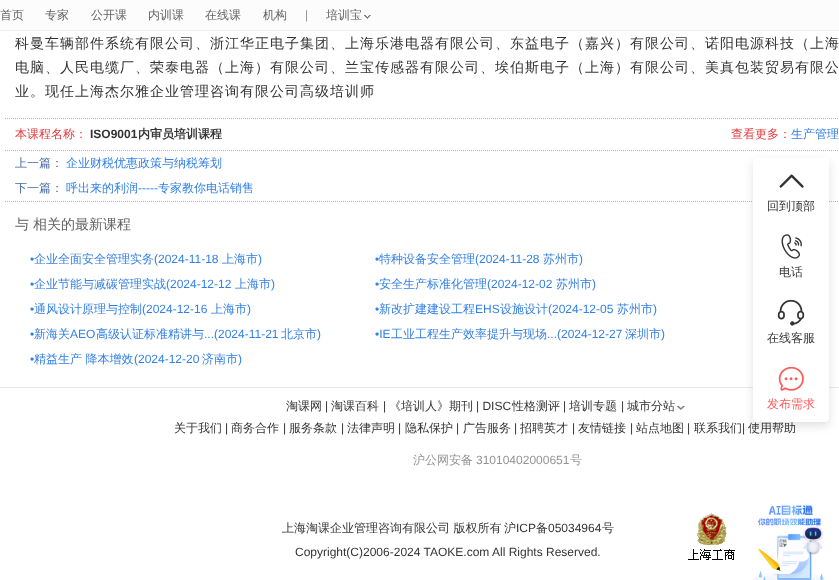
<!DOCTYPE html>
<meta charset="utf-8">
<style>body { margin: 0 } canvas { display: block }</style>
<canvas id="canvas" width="839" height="580"></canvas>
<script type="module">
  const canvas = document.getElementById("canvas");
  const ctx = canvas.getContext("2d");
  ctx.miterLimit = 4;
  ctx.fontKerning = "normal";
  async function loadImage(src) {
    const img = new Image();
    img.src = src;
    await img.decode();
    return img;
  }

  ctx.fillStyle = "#ffffff";
  ctx.fillRect(0, 0, 839, 580);
  ctx.fillStyle = "#fcfcfc";
  ctx.fillRect(0, 0, 839, 30);
  ctx.fillStyle = "#efefef";
  ctx.fillRect(0, 30, 839, 1);
  ctx.font = "500 12px WenQuanYi Zen Hei";
  ctx.fillStyle = "#636363";
  ctx.fillText("首页", 0, 19);
  ctx.fillText("专家", 45, 19);
  ctx.fillText("公开课", 91, 19);
  ctx.fillText("内训课", 148, 19);
  ctx.fillText("在线课", 205, 19);
  ctx.fillText("机构", 263, 19);
  ctx.font = "12px Liberation Sans";
  ctx.fillStyle = "#939393";
  ctx.fillText("|", 305, 19);
  ctx.font = "500 12px WenQuanYi Zen Hei";
  ctx.fillStyle = "#636363";
  ctx.fillText("培训宝", 326, 19);
  ctx.drawImage(await loadImage("img1.png"), 364, 15, 7, 4);
  ctx.letterSpacing = "1px";
  ctx.font = "500 14px WenQuanYi Zen Hei";
  ctx.fillStyle = "#333333";
  ctx.fillText("科曼车辆部件系统有限公司、浙江华正电子集团、上海乐港电器有限公司、东益电子（嘉兴）有限公司、诺阳电源科技（上海", 15, 48);
  ctx.fillText("电脑、人民电缆厂、荣泰电器（上海）有限公司、兰宝传感器有限公司、埃伯斯电子（上海）有限公司、美真包装贸易有限公", 15, 72);
  ctx.fillText("业。现任上海杰尔雅企业管理咨询有限公司高级培训师", 15, 96);
  ctx.beginPath();
  ctx.moveTo(5, 118.5);
  ctx.lineTo(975, 118.5);
  ctx.strokeStyle = "#93bcf1";
  ctx.setLineDash([1, 1]);
  ctx.stroke();
  ctx.beginPath();
  ctx.moveTo(5, 150.5);
  ctx.lineTo(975, 150.5);
  ctx.stroke();
  ctx.letterSpacing = "0px";
  ctx.font = "500 12px WenQuanYi Zen Hei";
  ctx.fillStyle = "#e2393c";
  ctx.fillText("本课程名称：", 15, 138);
  ctx.font = "bold 12px Liberation Sans";
  ctx.fillStyle = "#333333";
  ctx.fillText("ISO9001", 90, 138);
  ctx.font = "bold 12px WenQuanYi Zen Hei";
  ctx.fillText("内审员培训课程", 138, 138);
  ctx.font = "500 12px WenQuanYi Zen Hei";
  ctx.fillStyle = "#e2393c";
  ctx.fillText("查看更多：", 731, 138);
  ctx.fillStyle = "#3380e5";
  ctx.fillText("生产管理", 791, 138);
  ctx.beginPath();
  ctx.moveTo(5, 201.5);
  ctx.lineTo(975, 201.5);
  ctx.stroke();
  ctx.fillStyle = "#456aa4";
  ctx.fillText("上一篇：", 15, 167);
  ctx.fillStyle = "#3380e5";
  ctx.fillText("企业财税优惠政策与纳税筹划", 66, 167);
  ctx.fillStyle = "#456aa4";
  ctx.fillText("下一篇：", 15, 192);
  ctx.fillStyle = "#3380e5";
  ctx.fillText("呼出来的利润", 66, 192);
  ctx.font = "12px Liberation Sans";
  ctx.fillText("-----", 138, 192);
  ctx.font = "500 12px WenQuanYi Zen Hei";
  ctx.fillText("专家教你电话销售", 158, 192);
  ctx.font = "500 14px WenQuanYi Zen Hei";
  ctx.fillStyle = "#636363";
  ctx.fillText("与", 15, 229);
  ctx.fillText("相关的最新课程", 33, 229);
  ctx.font = "12px Liberation Sans";
  ctx.fillStyle = "#3380e5";
  ctx.fillText("•", 30, 263);
  ctx.font = "500 12px WenQuanYi Zen Hei";
  ctx.fillText("企业全面安全管理实务", 34, 263);
  ctx.font = "12px Liberation Sans";
  ctx.fillText("(2024-11-18", 154, 263);
  ctx.font = "500 12px WenQuanYi Zen Hei";
  ctx.fillText("上海市", 222, 263);
  ctx.font = "12px Liberation Sans";
  ctx.fillText(")", 258, 263);
  ctx.fillText("•", 375, 263);
  ctx.font = "500 12px WenQuanYi Zen Hei";
  ctx.fillText("特种设备安全管理", 379, 263);
  ctx.font = "12px Liberation Sans";
  ctx.fillText("(2024-11-28", 475, 263);
  ctx.font = "500 12px WenQuanYi Zen Hei";
  ctx.fillText("苏州市", 543, 263);
  ctx.font = "12px Liberation Sans";
  ctx.fillText(")", 579, 263);
  ctx.fillText("•", 30, 288);
  ctx.font = "500 12px WenQuanYi Zen Hei";
  ctx.fillText("企业节能与减碳管理实战", 34, 288);
  ctx.font = "12px Liberation Sans";
  ctx.fillText("(2024-12-12", 166, 288);
  ctx.font = "500 12px WenQuanYi Zen Hei";
  ctx.fillText("上海市", 235, 288);
  ctx.font = "12px Liberation Sans";
  ctx.fillText(")", 271, 288);
  ctx.fillText("•", 375, 288);
  ctx.font = "500 12px WenQuanYi Zen Hei";
  ctx.fillText("安全生产标准化管理", 379, 288);
  ctx.font = "12px Liberation Sans";
  ctx.fillText("(2024-12-02", 487, 288);
  ctx.font = "500 12px WenQuanYi Zen Hei";
  ctx.fillText("苏州市", 556, 288);
  ctx.font = "12px Liberation Sans";
  ctx.fillText(")", 592, 288);
  ctx.fillText("•", 30, 313);
  ctx.font = "500 12px WenQuanYi Zen Hei";
  ctx.fillText("通风设计原理与控制", 34, 313);
  ctx.font = "12px Liberation Sans";
  ctx.fillText("(2024-12-16", 142, 313);
  ctx.font = "500 12px WenQuanYi Zen Hei";
  ctx.fillText("上海市", 211, 313);
  ctx.font = "12px Liberation Sans";
  ctx.fillText(")", 247, 313);
  ctx.fillText("•", 375, 313);
  ctx.font = "500 12px WenQuanYi Zen Hei";
  ctx.fillText("新改扩建建设工程", 379, 313);
  ctx.font = "12px Liberation Sans";
  ctx.fillText("EHS", 475, 313);
  ctx.font = "500 12px WenQuanYi Zen Hei";
  ctx.fillText("设施设计", 500, 313);
  ctx.font = "12px Liberation Sans";
  ctx.fillText("(2024-12-05", 548, 313);
  ctx.font = "500 12px WenQuanYi Zen Hei";
  ctx.fillText("苏州市", 617, 313);
  ctx.font = "12px Liberation Sans";
  ctx.fillText(")", 653, 313);
  ctx.fillText("•", 30, 338);
  ctx.font = "500 12px WenQuanYi Zen Hei";
  ctx.fillText("新海关", 34, 338);
  ctx.font = "12px Liberation Sans";
  ctx.fillText("AEO", 70, 338);
  ctx.font = "500 12px WenQuanYi Zen Hei";
  ctx.fillText("高级认证标准精讲与", 96, 338);
  ctx.font = "12px Liberation Sans";
  ctx.fillText("...(2024-11-21", 204, 338);
  ctx.font = "500 12px WenQuanYi Zen Hei";
  ctx.fillText("北京市", 281, 338);
  ctx.font = "12px Liberation Sans";
  ctx.fillText(")", 317, 338);
  ctx.fillText("•IE", 375, 338);
  ctx.font = "500 12px WenQuanYi Zen Hei";
  ctx.fillText("工业工程生产效率提升与现场", 391, 338);
  ctx.font = "12px Liberation Sans";
  ctx.fillText("...(2024-12-27", 547, 338);
  ctx.font = "500 12px WenQuanYi Zen Hei";
  ctx.fillText("深圳市", 625, 338);
  ctx.font = "12px Liberation Sans";
  ctx.fillText(")", 661, 338);
  ctx.fillText("•", 30, 363);
  ctx.font = "500 12px WenQuanYi Zen Hei";
  ctx.fillText("精益生产 降本增效", 34, 363);
  ctx.font = "12px Liberation Sans";
  ctx.fillText("(2024-12-20", 134, 363);
  ctx.font = "500 12px WenQuanYi Zen Hei";
  ctx.fillText("济南市", 202, 363);
  ctx.font = "12px Liberation Sans";
  ctx.fillText(")", 238, 363);
  ctx.fillStyle = "#e7e7e7";
  ctx.fillRect(0, 387, 839, 1);
  ctx.fillStyle = "rgba(0, 0, 0, 0.12)";
  ctx.filter = "blur(5px)";
  ctx.beginPath();
  ctx.roundRect(753, 162, 76, 264, 4);
  ctx.fill();
  ctx.filter = "none";
  ctx.fillStyle = "#ffffff";
  ctx.beginPath();
  ctx.roundRect(753, 158, 76, 264, 4);
  ctx.fill();
  ctx.drawImage(await loadImage("img2.png"), 779, 174, 25, 14);
  ctx.font = "500 12px WenQuanYi Zen Hei";
  ctx.fillStyle = "#333333";
  ctx.fillText("回到顶部", 767, 210);
  ctx.drawImage(await loadImage("img3.png"), 781, 234, 21, 25);
  ctx.fillText("电话", 779, 276);
  ctx.drawImage(await loadImage("img4.png"), 777, 299, 28, 27);
  ctx.fillText("在线客服", 767, 342);
  ctx.drawImage(await loadImage("img5.png"), 778, 366, 26, 25);
  ctx.fillStyle = "#ff5b5b";
  ctx.fillText("发布需求", 767, 408);
  ctx.drawImage(await loadImage("img6.png"), 753, 505, 72, 75);
  ctx.fillStyle = "#333333";
  ctx.fillText("淘课网", 286, 410);
  ctx.font = "12px Liberation Sans";
  ctx.fillText("|", 325, 410);
  ctx.font = "500 12px WenQuanYi Zen Hei";
  ctx.fillText("淘课百科", 331, 410);
  ctx.font = "12px Liberation Sans";
  ctx.fillText("|", 383, 410);
  ctx.font = "500 12px WenQuanYi Zen Hei";
  ctx.fillText("《培训人》期刊", 389, 410);
  ctx.font = "12px Liberation Sans";
  ctx.fillText("| DISC", 476, 410);
  ctx.font = "500 12px WenQuanYi Zen Hei";
  ctx.fillText("性格测评", 512, 410);
  ctx.font = "12px Liberation Sans";
  ctx.fillText("|", 563, 410);
  ctx.font = "500 12px WenQuanYi Zen Hei";
  ctx.fillText("培训专题", 569, 410);
  ctx.font = "12px Liberation Sans";
  ctx.fillText("|", 621, 410);
  ctx.font = "500 12px WenQuanYi Zen Hei";
  ctx.fillText("城市分站", 627, 410);
  ctx.drawImage(await loadImage("img7.png"), 677, 406, 8, 4);
  ctx.fillText("关于我们", 174, 432);
  ctx.font = "12px Liberation Sans";
  ctx.fillText("|", 225, 432);
  ctx.font = "500 12px WenQuanYi Zen Hei";
  ctx.fillText("商务合作", 231, 432);
  ctx.font = "12px Liberation Sans";
  ctx.fillText("|", 283, 432);
  ctx.font = "500 12px WenQuanYi Zen Hei";
  ctx.fillText("服务条款", 289, 432);
  ctx.font = "12px Liberation Sans";
  ctx.fillText("|", 341, 432);
  ctx.font = "500 12px WenQuanYi Zen Hei";
  ctx.fillText("法律声明", 347, 432);
  ctx.font = "12px Liberation Sans";
  ctx.fillText("|", 398, 432);
  ctx.font = "500 12px WenQuanYi Zen Hei";
  ctx.fillText("隐私保护", 405, 432);
  ctx.font = "12px Liberation Sans";
  ctx.fillText("|", 456, 432);
  ctx.font = "500 12px WenQuanYi Zen Hei";
  ctx.fillText("广告服务", 463, 432);
  ctx.font = "12px Liberation Sans";
  ctx.fillText("|", 514, 432);
  ctx.font = "500 12px WenQuanYi Zen Hei";
  ctx.fillText("招聘英才", 520, 432);
  ctx.font = "12px Liberation Sans";
  ctx.fillText("|", 572, 432);
  ctx.font = "500 12px WenQuanYi Zen Hei";
  ctx.fillText("友情链接", 578, 432);
  ctx.font = "12px Liberation Sans";
  ctx.fillText("|", 630, 432);
  ctx.font = "500 12px WenQuanYi Zen Hei";
  ctx.fillText("站点地图", 636, 432);
  ctx.font = "12px Liberation Sans";
  ctx.fillText("|", 687, 432);
  ctx.font = "500 12px WenQuanYi Zen Hei";
  ctx.fillText("联系我们", 694, 432);
  ctx.font = "12px Liberation Sans";
  ctx.fillText("|", 742, 432);
  ctx.font = "500 12px WenQuanYi Zen Hei";
  ctx.fillText("使用帮助", 748, 432);
  ctx.fillStyle = "#939393";
  ctx.fillText("沪公网安备", 413, 464);
  ctx.font = "12px Liberation Sans";
  ctx.fillText("31010402000651", 476, 464);
  ctx.font = "500 12px WenQuanYi Zen Hei";
  ctx.fillText("号", 570, 464);
  ctx.drawImage(await loadImage("img8.png"), 688, 513, 47, 47);
  ctx.fillStyle = "#333333";
  ctx.fillText("上海淘课企业管理咨询有限公司 版权所有", 282, 532);
  ctx.fillText("沪", 504, 532);
  ctx.font = "12px Liberation Sans";
  ctx.fillText("ICP", 516, 532);
  ctx.font = "500 12px WenQuanYi Zen Hei";
  ctx.fillText("备", 536, 532);
  ctx.font = "12px Liberation Sans";
  ctx.fillText("05034964", 548, 532);
  ctx.font = "500 12px WenQuanYi Zen Hei";
  ctx.fillText("号", 602, 532);
  ctx.font = "12px Liberation Sans";
  ctx.fillText("Copyright(C)2006-2024 TAOKE.com All Rights Reserved.", 295, 556);
</script>
